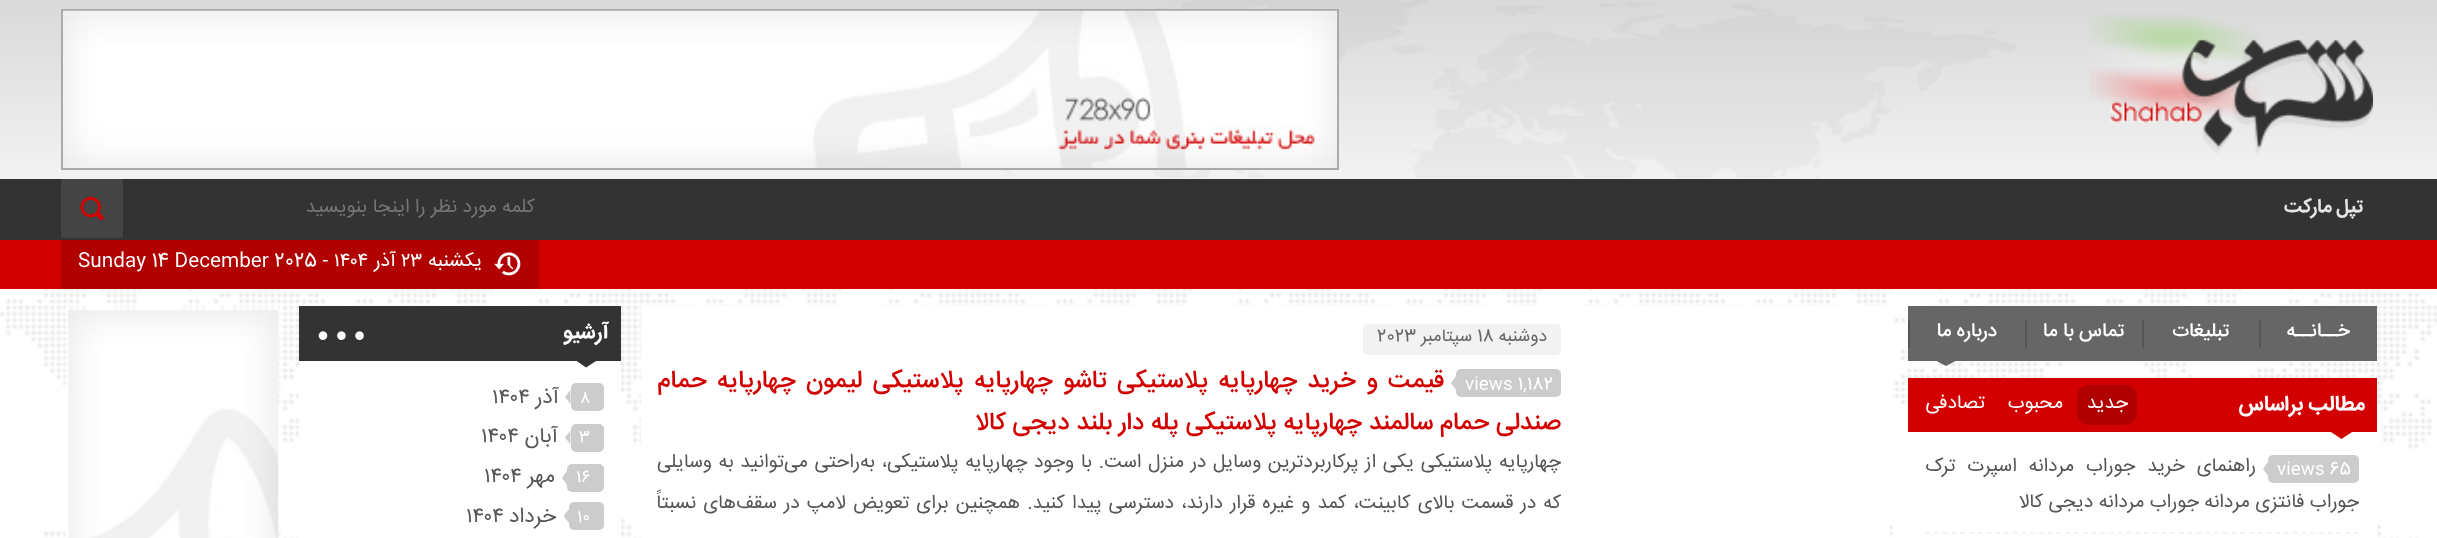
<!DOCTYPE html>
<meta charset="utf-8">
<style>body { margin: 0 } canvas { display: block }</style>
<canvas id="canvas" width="2437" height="538"></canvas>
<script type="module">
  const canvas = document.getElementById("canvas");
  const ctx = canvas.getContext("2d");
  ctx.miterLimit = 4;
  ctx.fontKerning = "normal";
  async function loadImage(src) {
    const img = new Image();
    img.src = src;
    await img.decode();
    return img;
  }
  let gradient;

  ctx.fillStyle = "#ffffff";
  ctx.fillRect(0, 0, 2437, 538);
  ctx.drawImage(await loadImage("img1.png"), 0, 289, 2437, 249);
  gradient = ctx.createLinearGradient(1219, 0, 1219, 179);
  gradient.addColorStop(0, "#d9d9d9");
  gradient.addColorStop(1, "#f2f2f2");
  ctx.fillStyle = gradient;
  ctx.fillRect(0, 0, 2437, 179);
  ctx.drawImage(await loadImage("img2.png"), 1003, 0, 1014, 178);
  ctx.drawImage(await loadImage("img3.png"), 2089, 13, 284, 141);
  ctx.strokeStyle = "#aaaaaa";
  ctx.lineWidth = 2;
  ctx.strokeRect(62, 10, 1276, 159);
  ctx.drawImage(await loadImage("img4.png"), 63, 10, 1274, 158);
  ctx.fillStyle = "#333333";
  ctx.fillRect(0, 179, 2437, 61);
  ctx.direction = "rtl";
  ctx.font = "bold 19.25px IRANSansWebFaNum";
  ctx.fillStyle = "#e5e5e5";
  ctx.fillText("تپل مارکت", 2363, 212);
  ctx.font = "19.25px IRANSansWebFaNum";
  ctx.fillStyle = "#757575";
  ctx.fillText("كلمه مورد نظر را اينجا بنويسيد", 535, 212);
  ctx.fillStyle = "#444444";
  ctx.fillRect(61, 179, 62, 59);
  ctx.drawImage(await loadImage("img5.png"), 80, 196, 24, 25);
  ctx.fillStyle = "#d20001";
  ctx.fillRect(0, 240, 2437, 49);
  ctx.fillStyle = "#b10000";
  ctx.fillRect(61, 240, 478, 49);
  ctx.drawImage(await loadImage("img6.png"), 494, 252, 27, 24);
  ctx.fillStyle = "#ffffff";
  ctx.fillText("یکشنبه", 482, 266);
  ctx.direction = "ltr";
  ctx.fillText("۲۳", 401, 266);
  ctx.direction = "rtl";
  ctx.fillText("آذر", 396, 266);
  ctx.direction = "ltr";
  ctx.fillText("Sunday 14 December 2025 - ۱۴۰۴", 78, 266);
  ctx.fillStyle = "#666666";
  ctx.fillRect(1908, 306, 469, 55);
  ctx.direction = "rtl";
  ctx.font = "500 19.25px IRANSansWebFaNum";
  ctx.fillStyle = "#ffffff";
  ctx.fillText("خــانــه", 2350, 336);
  ctx.fillStyle = "#555555";
  ctx.fillRect(2259, 320, 2, 28);
  ctx.fillStyle = "#ffffff";
  ctx.fillText("تبلیغات", 2229, 336);
  ctx.fillStyle = "#555555";
  ctx.fillRect(2142, 320, 2, 28);
  ctx.fillStyle = "#ffffff";
  ctx.fillText("تماس با ما", 2124, 336);
  ctx.fillStyle = "#555555";
  ctx.fillRect(2025, 320, 2, 28);
  ctx.fillStyle = "#ffffff";
  ctx.fillText("درباره ما", 1997, 336);
  ctx.fillStyle = "#555555";
  ctx.fillRect(1908, 320, 2, 28);
  ctx.fillStyle = "#666666";
  ctx.beginPath();
  ctx.moveTo(1935.5, 360.5);
  ctx.lineTo(1956.5, 360.5);
  ctx.lineTo(1946, 366);
  ctx.closePath();
  ctx.fill();
  ctx.fillStyle = "#ffffff";
  ctx.fillRect(1925, 432, 452, 106);
  ctx.fillStyle = "#d20001";
  ctx.fillRect(1908, 378, 469, 54);
  ctx.font = "bold 21px IRANSansWebFaNum";
  ctx.fillStyle = "#ffffff";
  ctx.fillText("مطالب براساس", 2365, 410);
  ctx.fillStyle = "#b10000";
  ctx.beginPath();
  ctx.roundRect(2077, 385, 60, 40, 12);
  ctx.fill();
  ctx.font = "19.25px IRANSansWebFaNum";
  ctx.fillStyle = "#ffffff";
  ctx.fillText("جدید", 2128, 408);
  ctx.fillText("محبوب", 2063, 408);
  ctx.fillText("تصادفی", 1985, 408);
  ctx.fillStyle = "#d20001";
  ctx.beginPath();
  ctx.moveTo(2331, 432);
  ctx.lineTo(2352, 432);
  ctx.lineTo(2341.5, 439);
  ctx.closePath();
  ctx.fill();
  ctx.beginPath();
  ctx.moveTo(1925, 533);
  ctx.lineTo(2359, 533);
  ctx.strokeStyle = "#f2f2f2";
  ctx.lineWidth = 1.8;
  ctx.setLineDash([5.25, 3.5]);
  ctx.stroke();
  ctx.fillStyle = "#cccccc";
  ctx.beginPath();
  ctx.roundRect(2268, 455, 91, 28, 5);
  ctx.fill();
  ctx.direction = "ltr";
  ctx.font = "17.5px IRANSansWebFaNum";
  ctx.fillStyle = "#ffffff";
  ctx.fillText("views 65", 2277, 474);
  ctx.fillStyle = "#cccccc";
  ctx.beginPath();
  ctx.moveTo(2268, 462);
  ctx.lineTo(2268, 476);
  ctx.lineTo(2263, 469);
  ctx.closePath();
  ctx.fill();
  ctx.wordSpacing = "6.5px";
  ctx.direction = "rtl";
  ctx.font = "19.25px IRANSansWebFaNum";
  ctx.fillStyle = "#555555";
  ctx.fillText("راهنمای خرید جوراب مردانه اسپرت ترک", 2256, 471);
  ctx.wordSpacing = "0px";
  ctx.fillText("جوراب فانتزی مردانه جوراب مردانه دیجی کالا", 2359, 507);
  ctx.fillStyle = "#ffffff";
  ctx.fillRect(641, 306, 1249, 232);
  ctx.fillStyle = "#f2f2f2";
  ctx.beginPath();
  ctx.roundRect(1495, 324, 66, 31, [0, 5, 5, 0]);
  ctx.fill();
  ctx.font = "17.5px IRANSansWebFaNum";
  ctx.fillStyle = "#666666";
  ctx.fillText("دوشنبه", 1547, 341);
  ctx.fillStyle = "#f2f2f2";
  ctx.fillRect(1416, 324, 79, 31);
  ctx.direction = "ltr";
  ctx.fillStyle = "#666666";
  ctx.fillText("18", 1477, 341);
  ctx.direction = "rtl";
  ctx.fillText("سپتامبر", 1472, 341);
  ctx.fillStyle = "#f2f2f2";
  ctx.beginPath();
  ctx.roundRect(1363, 324, 53, 31, [5, 0, 0, 5]);
  ctx.fill();
  ctx.direction = "ltr";
  ctx.fillStyle = "#666666";
  ctx.fillText("2023", 1377, 341);
  ctx.wordSpacing = "3.6px";
  ctx.direction = "rtl";
  ctx.font = "500 24.5px IRANSansWebFaNum";
  ctx.fillStyle = "#d20001";
  ctx.fillText("قیمت و خرید چهارپایه پلاستیکی تاشو چهارپایه پلاستیکی لیمون چهارپایه حمام", 1444, 387);
  ctx.wordSpacing = "0px";
  ctx.fillText("صندلی حمام سالمند چهارپایه پلاستیکی پله دار بلند دیجی کالا", 1561, 429);
  ctx.fillStyle = "#cccccc";
  ctx.beginPath();
  ctx.roundRect(1456, 369, 105, 28, 5);
  ctx.fill();
  ctx.direction = "ltr";
  ctx.font = "17.5px IRANSansWebFaNum";
  ctx.fillStyle = "#ffffff";
  ctx.fillText("views 1,182", 1465, 389);
  ctx.fillStyle = "#cccccc";
  ctx.beginPath();
  ctx.moveTo(1456, 376);
  ctx.lineTo(1456, 390);
  ctx.lineTo(1451, 383);
  ctx.closePath();
  ctx.fill();
  ctx.wordSpacing = "1.25px";
  ctx.direction = "rtl";
  ctx.font = "19.25px IRANSansWebFaNum";
  ctx.fillStyle = "#555555";
  ctx.fillText("چهارپایه پلاستیکی یکی از پرکاربردترین وسایل در منزل است. با وجود چهارپایه پلاستیکی، به‌راحتی می‌توانید به وسایلی", 1561, 467);
  ctx.wordSpacing = "1.7px";
  ctx.fillText("که در قسمت بالای کابینت، کمد و غیره قرار دارند، دسترسی پیدا کنید. همچنین برای تعویض لامپ در سقف‌های نسبتاً", 1561, 508);
  ctx.fillStyle = "#ffffff";
  ctx.fillRect(299, 361, 322, 177);
  ctx.fillStyle = "#333333";
  ctx.fillRect(299, 306, 322, 55);
  ctx.wordSpacing = "0px";
  ctx.font = "bold 21px IRANSansWebFaNum";
  ctx.fillStyle = "#ffffff";
  ctx.fillText("آرشیو", 609, 338);
  ctx.drawImage(await loadImage("img7.png"), 318, 331, 46, 9);
  ctx.fillStyle = "#333333";
  ctx.beginPath();
  ctx.moveTo(576, 360.5);
  ctx.lineTo(597, 360.5);
  ctx.lineTo(586, 367.5);
  ctx.closePath();
  ctx.fill();
  ctx.fillStyle = "#cccccc";
  ctx.beginPath();
  ctx.roundRect(571, 383, 33, 28, 5);
  ctx.fill();
  ctx.direction = "ltr";
  ctx.font = "17.5px IRANSansWebFaNum";
  ctx.fillStyle = "#ffffff";
  ctx.fillText("۸", 580, 403);
  ctx.fillStyle = "#cccccc";
  ctx.beginPath();
  ctx.moveTo(570.5, 390);
  ctx.lineTo(570.5, 404);
  ctx.lineTo(565, 397);
  ctx.closePath();
  ctx.fill();
  ctx.direction = "rtl";
  ctx.font = "21px IRANSansWebFaNum";
  ctx.fillStyle = "#555555";
  ctx.fillText("آذر", 559, 403);
  ctx.direction = "ltr";
  ctx.fillText("۱۴۰۴", 492, 403);
  ctx.fillStyle = "#cccccc";
  ctx.beginPath();
  ctx.roundRect(571, 424, 33, 28, 5);
  ctx.fill();
  ctx.font = "17.5px IRANSansWebFaNum";
  ctx.fillStyle = "#ffffff";
  ctx.fillText("۳", 579, 442);
  ctx.fillStyle = "#cccccc";
  ctx.beginPath();
  ctx.moveTo(570.5, 430.5);
  ctx.lineTo(570.5, 444.5);
  ctx.lineTo(565, 437.5);
  ctx.closePath();
  ctx.fill();
  ctx.direction = "rtl";
  ctx.font = "21px IRANSansWebFaNum";
  ctx.fillStyle = "#555555";
  ctx.fillText("آبان", 558, 442);
  ctx.direction = "ltr";
  ctx.fillText("۱۴۰۴", 481, 442);
  ctx.fillStyle = "#cccccc";
  ctx.beginPath();
  ctx.roundRect(567, 464, 37, 28, 5);
  ctx.fill();
  ctx.font = "17.5px IRANSansWebFaNum";
  ctx.fillStyle = "#ffffff";
  ctx.fillText("۱۶", 576, 482);
  ctx.fillStyle = "#cccccc";
  ctx.beginPath();
  ctx.moveTo(567, 471);
  ctx.lineTo(567, 485);
  ctx.lineTo(562, 478);
  ctx.closePath();
  ctx.fill();
  ctx.direction = "rtl";
  ctx.font = "21px IRANSansWebFaNum";
  ctx.fillStyle = "#555555";
  ctx.fillText("مهر", 555, 482);
  ctx.direction = "ltr";
  ctx.fillText("۱۴۰۴", 484, 482);
  ctx.fillStyle = "#cccccc";
  ctx.beginPath();
  ctx.roundRect(569, 502, 35, 28, 5);
  ctx.fill();
  ctx.font = "17.5px IRANSansWebFaNum";
  ctx.fillStyle = "#ffffff";
  ctx.fillText("۱۰", 577, 522);
  ctx.fillStyle = "#cccccc";
  ctx.beginPath();
  ctx.moveTo(569, 509);
  ctx.lineTo(569, 523);
  ctx.lineTo(563.5, 516);
  ctx.closePath();
  ctx.fill();
  ctx.direction = "rtl";
  ctx.font = "21px IRANSansWebFaNum";
  ctx.fillStyle = "#555555";
  ctx.fillText("خرداد", 556, 522);
  ctx.direction = "ltr";
  ctx.fillText("۱۴۰۴", 466, 522);
  ctx.strokeStyle = "rgba(255, 255, 255, 0.5)";
  ctx.lineWidth = 4;
  ctx.setLineDash([]);
  ctx.strokeRect(67, 308, 213, 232);
  ctx.drawImage(await loadImage("img8.png"), 68, 310, 211, 228);
</script>
